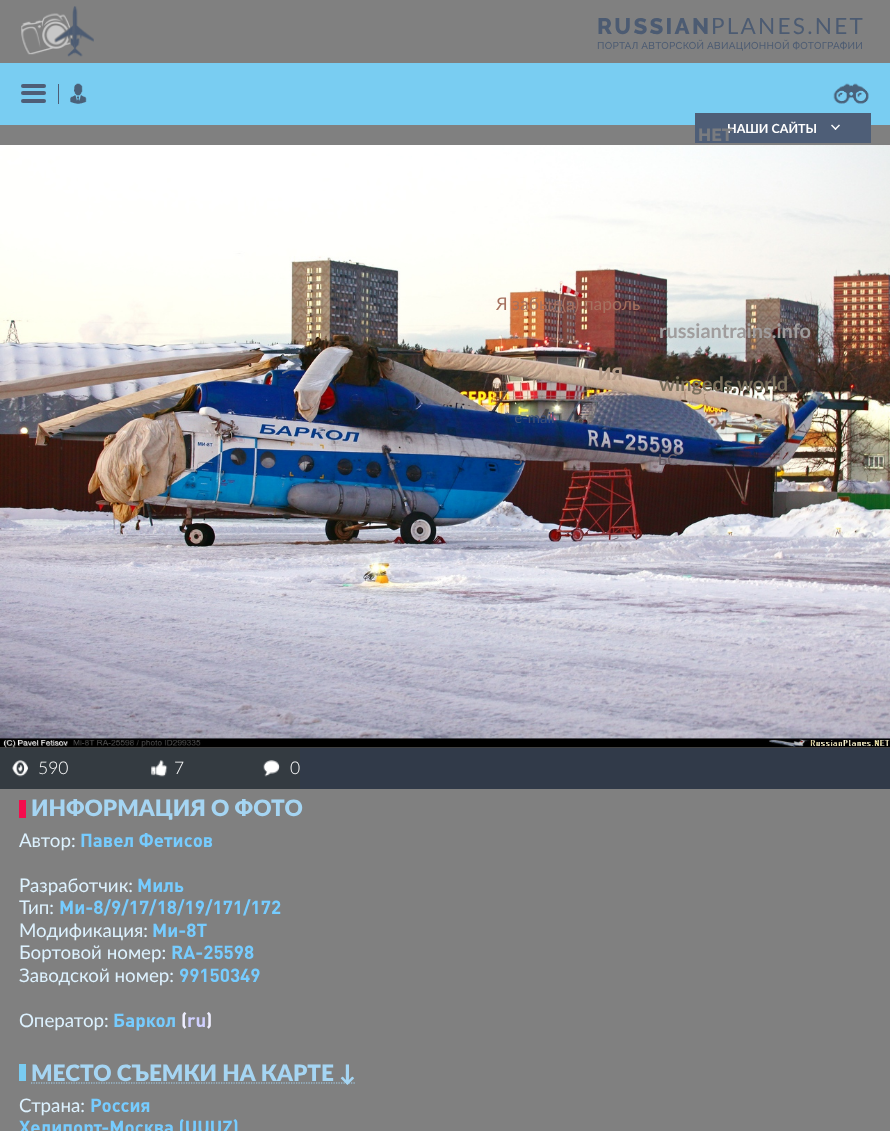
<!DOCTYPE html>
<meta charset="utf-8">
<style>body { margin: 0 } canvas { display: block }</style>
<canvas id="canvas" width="890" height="1131"></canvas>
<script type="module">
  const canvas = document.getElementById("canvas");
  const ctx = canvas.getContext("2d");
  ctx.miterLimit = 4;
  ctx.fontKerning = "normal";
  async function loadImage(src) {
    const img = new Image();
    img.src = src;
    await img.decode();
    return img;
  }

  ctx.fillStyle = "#808080";
  ctx.fillRect(0, 0, 890, 1131);
  ctx.drawImage(await loadImage("img1.png"), 21, 6, 73, 51);
  ctx.letterSpacing = "2.25px";
  ctx.font = "800 22.5px Raleway";
  ctx.fillStyle = "#4c5b72";
  ctx.fillText("RUSSIAN", 597, 34);
  ctx.font = "22.5px Lato";
  ctx.fillText("PLANES.NET", 711, 34);
  ctx.letterSpacing = "0.25px";
  ctx.font = "500 10px Raleway";
  ctx.fillText("ПОРТАЛ АВТОРСКОЙ АВИАЦИОННОЙ ФОТОГРАФИИ", 597, 49);
  ctx.fillStyle = "#79cdf2";
  ctx.fillRect(0, 63, 890, 62);
  ctx.fillStyle = "#4e5e77";
  ctx.fillRect(58, 84, 1, 20);
  ctx.beginPath();
  ctx.roundRect(21, 84, 25, 4, 2);
  ctx.fill();
  ctx.beginPath();
  ctx.roundRect(21, 91, 25, 4, 2);
  ctx.fill();
  ctx.beginPath();
  ctx.roundRect(21, 99, 25, 4, 2);
  ctx.fill();
  ctx.drawImage(await loadImage("img4.png"), 0, 145, 890, 603);
  ctx.letterSpacing = "-13px";
  ctx.font = "40px Liberation Serif";
  ctx.fillStyle = "#667287";
  ctx.fillText(">", 280, 378);
  ctx.drawImage(await loadImage("img2.png"), 833, 83, 36, 21);
  ctx.drawImage(await loadImage("img3.png"), 70, 83, 17, 21);
  ctx.fillStyle = "#4e5e77";
  ctx.fillRect(695, 113, 176, 30);
  ctx.letterSpacing = "0px";
  ctx.font = "bold 12.5px Lato";
  ctx.fillStyle = "#ffffff";
  ctx.fillText("НАШИ САЙТЫ", 727, 133);
  ctx.font = "800 17.5px Raleway";
  ctx.fillStyle = "#797b7f";
  ctx.fillText("НЕТ", 698, 141);
  ctx.font = "17.5px Lato";
  ctx.fillStyle = "#a6715f";
  ctx.fillText("Я забыл(а) пароль", 496, 310);
  ctx.font = "800 17.5px Raleway";
  ctx.fillStyle = "#b39b88";
  ctx.fillText("ИЯ", 598, 380);
  ctx.font = "15px Lato";
  ctx.fillStyle = "#3f5077";
  ctx.fillText("* e-mail", 504, 423);
  ctx.font = "500 15px Lato";
  ctx.fillStyle = "#675c64";
  ctx.fillText("З", 514, 465);
  ctx.fillText("ЬС", 658, 465);
  ctx.fillStyle = "#ffffff";
  ctx.beginPath();
  ctx.moveTo(839, 124.5);
  ctx.lineTo(840, 125.5);
  ctx.lineTo(835.5, 130);
  ctx.lineTo(834.5, 129);
  ctx.closePath();
  ctx.fill();
  ctx.beginPath();
  ctx.moveTo(832, 124.5);
  ctx.lineTo(836.5, 129);
  ctx.lineTo(835.5, 130);
  ctx.lineTo(831, 125.5);
  ctx.closePath();
  ctx.fill();
  ctx.font = "bold 20px Lato";
  ctx.fillStyle = "#a09d9d";
  ctx.fillText("russiantrains.info", 659, 338);
  ctx.fillStyle = "#796f5c";
  ctx.fillText("wingeds.world", 659, 391);
  ctx.fillStyle = "#313a49";
  ctx.fillRect(300, 748, 590, 41);
  ctx.fillStyle = "#343b41";
  ctx.fillRect(0, 748, 300, 41);
  ctx.drawImage(await loadImage("img5.png"), 12, 760, 17, 17);
  ctx.font = "300 17.5px Lato";
  ctx.fillStyle = "#ffffff";
  ctx.fillText("590", 38, 774);
  ctx.drawImage(await loadImage("img6.png"), 151, 760, 17, 17);
  ctx.fillText("7", 174, 774);
  ctx.drawImage(await loadImage("img7.png"), 263, 760, 17, 17);
  ctx.fillText("0", 290, 774);
  ctx.fillStyle = "#f50c4d";
  ctx.fillRect(19, 800, 7, 18);
  ctx.font = "900 22.5px Lato";
  ctx.fillStyle = "#a5d5f3";
  ctx.fillText("ИНФОРМАЦИЯ О ФОТО", 31, 816);
  ctx.font = "18.75px Lato";
  ctx.fillStyle = "#ddf2ff";
  ctx.fillText("Автор:", 19, 847);
  ctx.font = "bold 18.75px DIN";
  ctx.fillStyle = "#76ccff";
  ctx.fillText("Павел Фетисов", 80, 847);
  ctx.font = "18.75px Lato";
  ctx.fillStyle = "#ddf2ff";
  ctx.fillText("Разработчик:", 19, 892);
  ctx.font = "bold 18.75px DIN";
  ctx.fillStyle = "#76ccff";
  ctx.fillText("Миль", 137, 892);
  ctx.font = "18.75px Lato";
  ctx.fillStyle = "#ddf2ff";
  ctx.fillText("Тип:", 19, 914);
  ctx.font = "bold 18.75px DIN";
  ctx.fillStyle = "#76ccff";
  ctx.fillText("Ми-8/9/17/18/19/171/172", 59, 914);
  ctx.font = "18.75px Lato";
  ctx.fillStyle = "#ddf2ff";
  ctx.fillText("Модификация:", 19, 937);
  ctx.font = "bold 18.75px DIN";
  ctx.fillStyle = "#76ccff";
  ctx.fillText("Ми-8Т", 152, 937);
  ctx.font = "18.75px Lato";
  ctx.fillStyle = "#ddf2ff";
  ctx.fillText("Бортовой номер:", 19, 959);
  ctx.font = "bold 18.75px DIN";
  ctx.fillStyle = "#76ccff";
  ctx.fillText("RA-25598", 171, 959);
  ctx.font = "18.75px Lato";
  ctx.fillStyle = "#ddf2ff";
  ctx.fillText("Заводской номер:", 19, 982);
  ctx.font = "bold 18.75px DIN";
  ctx.fillStyle = "#76ccff";
  ctx.fillText("99150349", 179, 982);
  ctx.font = "18.75px Lato";
  ctx.fillStyle = "#ddf2ff";
  ctx.fillText("Оператор:", 19, 1027);
  ctx.font = "bold 18.75px DIN";
  ctx.fillStyle = "#76ccff";
  ctx.fillText("Баркол", 113, 1027);
  ctx.fillStyle = "#eeeeff";
  ctx.fillText("(", 181, 1027);
  ctx.fillStyle = "#d0d0ff";
  ctx.fillText("ru", 187, 1027);
  ctx.fillStyle = "#eeeeff";
  ctx.fillText(")", 206, 1027);
  ctx.fillStyle = "#79ccf2";
  ctx.fillRect(19, 1064, 7, 17);
  ctx.beginPath();
  ctx.moveTo(31, 1083);
  ctx.lineTo(356, 1083);
  ctx.strokeStyle = "#a5d5f3";
  ctx.lineWidth = 1.2;
  ctx.setLineDash([1.25, 1.25]);
  ctx.stroke();
  ctx.font = "900 22.5px Lato";
  ctx.fillStyle = "#a5d5f3";
  ctx.fillText("МЕСТО СЪЕМКИ НА КАРТЕ ↓", 31, 1081);
  ctx.font = "18.75px Lato";
  ctx.fillStyle = "#ddf2ff";
  ctx.fillText("Страна:", 19, 1112);
  ctx.font = "bold 18.75px DIN";
  ctx.fillStyle = "#76ccff";
  ctx.fillText("Россия", 90, 1112);
  ctx.fillText("Хелипорт-Москва (UUUZ)", 19, 1134);
</script>
